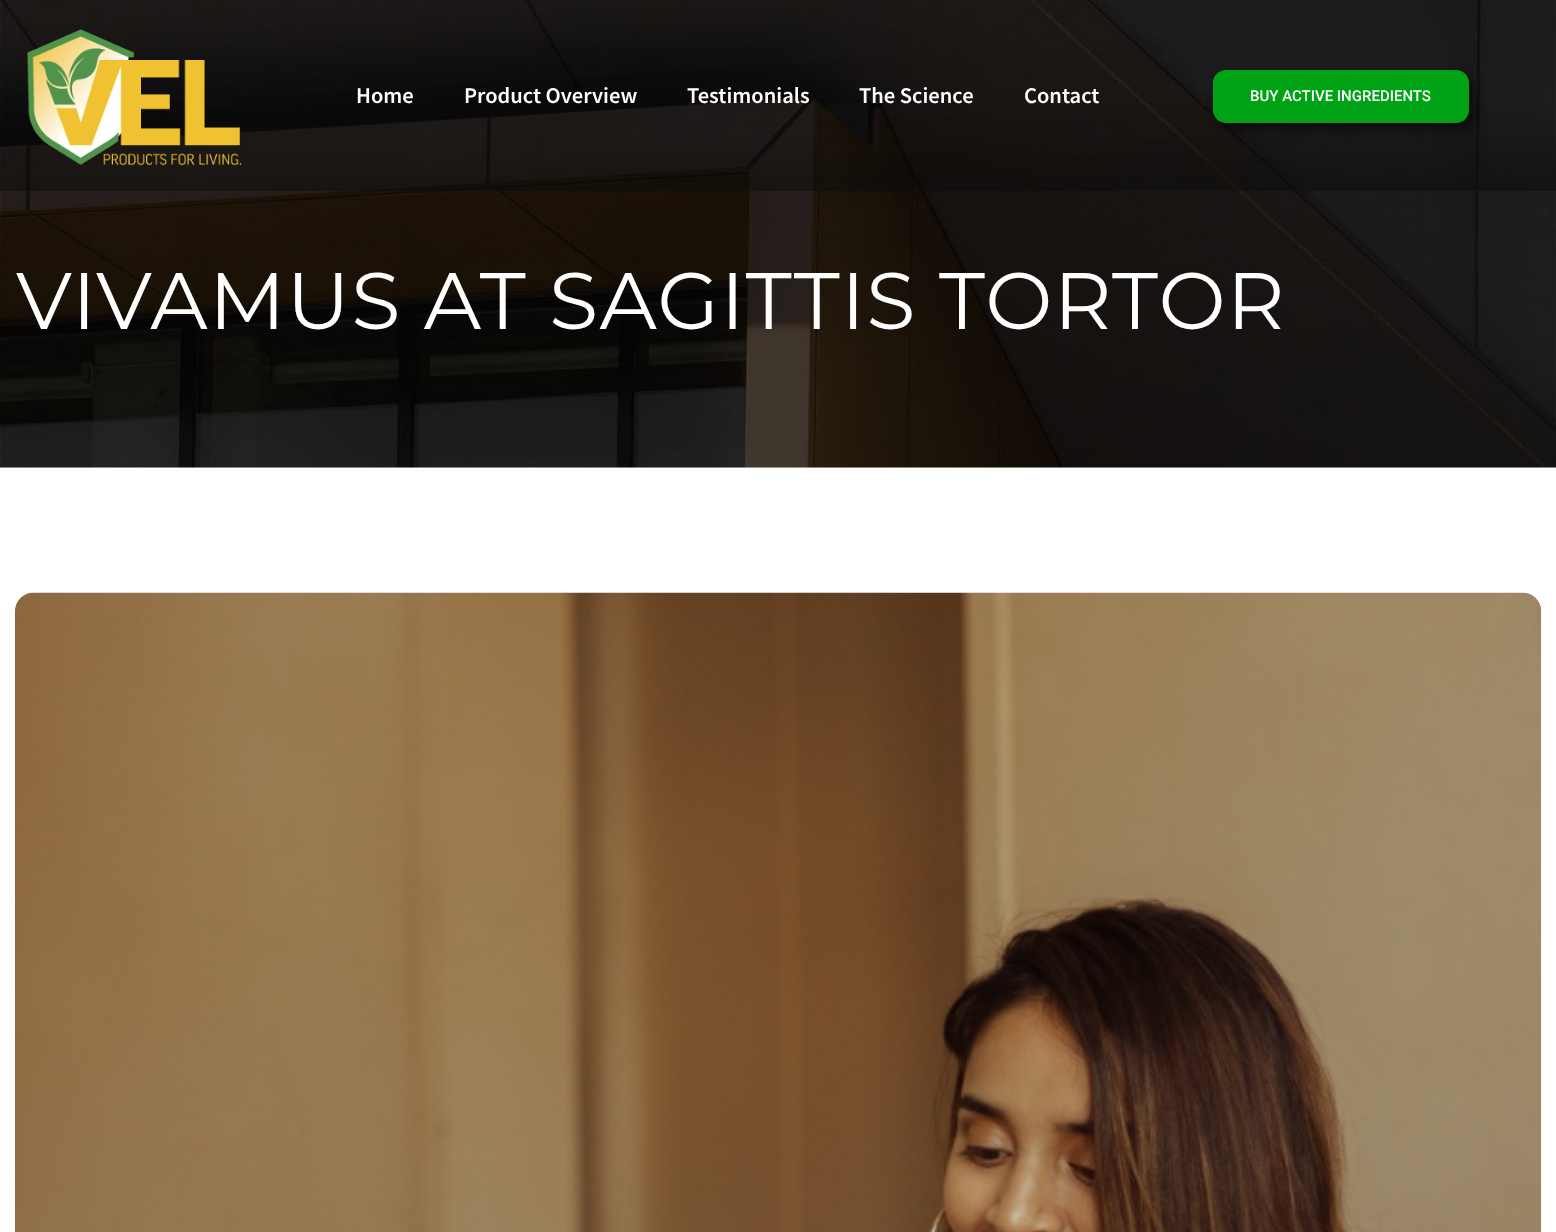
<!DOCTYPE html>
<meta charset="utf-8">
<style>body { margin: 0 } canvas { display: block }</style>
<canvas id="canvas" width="1556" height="1232"></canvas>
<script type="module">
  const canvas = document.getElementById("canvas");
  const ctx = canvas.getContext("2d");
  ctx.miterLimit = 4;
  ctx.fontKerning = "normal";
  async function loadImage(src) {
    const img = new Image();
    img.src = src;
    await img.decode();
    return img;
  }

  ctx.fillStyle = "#ffffff";
  ctx.fillRect(0, 0, 1556, 1232);
  ctx.fillStyle = "#f6f6f6";
  ctx.fillRect(0, 467, 1556, 1);
  ctx.drawImage(await loadImage("img2.png"), 0, 0, 1556, 468);
  ctx.drawImage(await loadImage("img1.png"), 26, 29, 216, 137);
  ctx.font = "600 22.5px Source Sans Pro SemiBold";
  ctx.fillStyle = "#ffffff";
  ctx.fillText("Home", 356, 103);
  ctx.fillText("Product Overview", 464, 103);
  ctx.fillText("Testimonials", 687, 103);
  ctx.fillText("The Science", 859, 103);
  ctx.fillText("Contact", 1024, 103);
  ctx.fillStyle = "rgba(0, 0, 0, 0.5)";
  ctx.filter = "blur(6px)";
  ctx.beginPath();
  ctx.roundRect(1219, 76, 256, 53, 13);
  ctx.fill();
  ctx.filter = "none";
  ctx.fillStyle = "#00a216";
  ctx.beginPath();
  ctx.roundRect(1213, 70, 256, 53, 13);
  ctx.fill();
  ctx.font = "500 15px Roboto";
  ctx.fillStyle = "#ffffff";
  ctx.fillText("BUY ACTIVE INGREDIENTS", 1250, 101);
  ctx.letterSpacing = "1.25px";
  ctx.font = "80px Montserrat";
  ctx.fillText("VIVAMUS AT SAGITTIS TORTOR", 16, 329);
  ctx.drawImage(await loadImage("img3.png"), 15, 592, 1527, 640);
</script>
